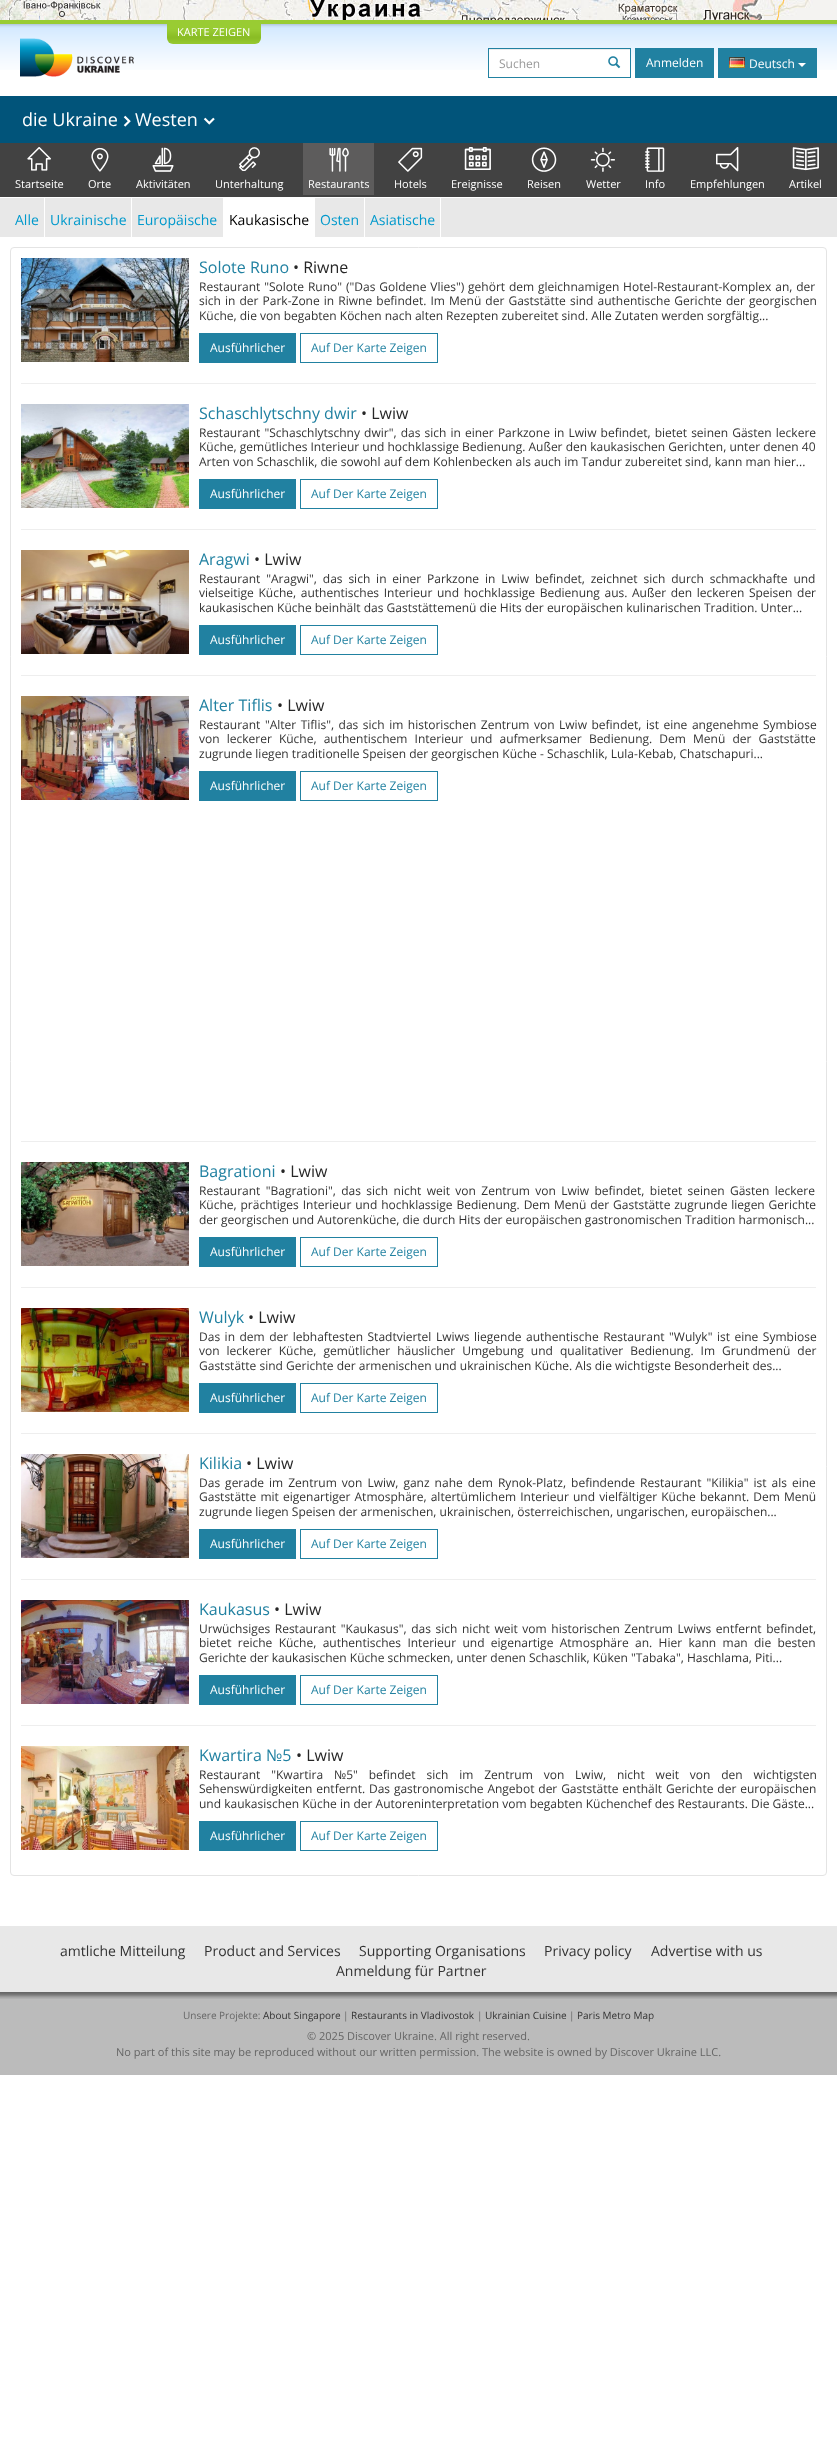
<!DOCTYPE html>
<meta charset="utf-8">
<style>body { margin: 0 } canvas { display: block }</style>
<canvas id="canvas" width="837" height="2441"></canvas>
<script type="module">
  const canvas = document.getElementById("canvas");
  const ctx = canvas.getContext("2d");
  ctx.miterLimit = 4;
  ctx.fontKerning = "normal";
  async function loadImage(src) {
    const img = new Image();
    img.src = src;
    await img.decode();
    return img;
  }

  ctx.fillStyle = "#ffffff";
  ctx.fillRect(0, 0, 837, 2441);
  ctx.drawImage(await loadImage("img1.png"), 0, 0, 837, 20);
  ctx.drawImage(await loadImage("img2.png"), 0, 20, 837, 50);
  ctx.drawImage(await loadImage("img3.png"), 167, 20, 94, 24);
  ctx.font = "11px Open Sans";
  ctx.fillText("KARTE ZEIGEN", 177, 36);
  ctx.drawImage(await loadImage("img4.png"), 20, 38, 114, 39);
  ctx.fillRect(489, 50, 141, 20);
  ctx.fillStyle = "#ececec";
  ctx.fillRect(489, 49, 141, 1);
  ctx.strokeStyle = "#2181a1";
  ctx.strokeRect(488.5, 48.5, 142, 29);
  ctx.font = "12px Open Sans";
  ctx.fillStyle = "#999999";
  ctx.fillText("Suchen", 499, 68);
  ctx.drawImage(await loadImage("img5.png"), 608, 56, 13, 13);
  ctx.fillStyle = "#2181a1";
  ctx.fillRect(635, 48, 79, 30);
  ctx.fillStyle = "#ffffff";
  ctx.fillText("Anmelden", 646, 67);
  ctx.fillStyle = "#2181a1";
  ctx.fillRect(718, 48, 99, 30);
  ctx.drawImage(await loadImage("img6.png"), 729, 57, 16, 11);
  ctx.fillStyle = "#ffffff";
  ctx.fillText("Deutsch", 749, 68);
  ctx.beginPath();
  ctx.moveTo(798, 63);
  ctx.lineTo(806, 63);
  ctx.lineTo(802, 67);
  ctx.closePath();
  ctx.fill();
  ctx.fillStyle = "#01547a";
  ctx.fillRect(0, 96, 837, 47);
  ctx.font = "18px Open Sans";
  ctx.fillStyle = "#ffffff";
  ctx.fillText("die Ukraine", 22, 126);
  ctx.drawImage(await loadImage("img7.png"), 123, 115, 8, 12);
  ctx.fillText("Westen", 135, 126);
  ctx.drawImage(await loadImage("img8.png"), 203, 117, 12, 8);
  ctx.fillStyle = "#424242";
  ctx.fillRect(0, 143, 837, 54);
  ctx.drawImage(await loadImage("img9.png"), 27, 147, 24, 24);
  ctx.font = "11px Open Sans";
  ctx.fillStyle = "#ffffff";
  ctx.fillText("Startseite", 15, 188);
  ctx.drawImage(await loadImage("img10.png"), 91, 147, 18, 25);
  ctx.fillText("Orte", 88, 188);
  ctx.drawImage(await loadImage("img11.png"), 152, 147, 22, 25);
  ctx.fillText("Aktivitäten", 136, 188);
  ctx.drawImage(await loadImage("img12.png"), 239, 147, 21, 24);
  ctx.fillText("Unterhaltung", 215, 188);
  ctx.fillStyle = "#5d5c5c";
  ctx.fillRect(303, 143, 71, 52);
  ctx.drawImage(await loadImage("img13.png"), 329, 147, 20, 25);
  ctx.fillStyle = "#ffffff";
  ctx.fillText("Restaurants", 308, 188);
  ctx.drawImage(await loadImage("img14.png"), 398, 147, 25, 25);
  ctx.fillText("Hotels", 394, 188);
  ctx.drawImage(await loadImage("img15.png"), 464, 147, 27, 23);
  ctx.fillText("Ereignisse", 451, 188);
  ctx.drawImage(await loadImage("img16.png"), 531, 147, 26, 25);
  ctx.fillText("Reisen", 527, 188);
  ctx.drawImage(await loadImage("img17.png"), 590, 147, 25, 25);
  ctx.fillText("Wetter", 586, 188);
  ctx.drawImage(await loadImage("img18.png"), 645, 147, 20, 25);
  ctx.fillText("Info", 645, 188);
  ctx.drawImage(await loadImage("img19.png"), 716, 147, 23, 25);
  ctx.fillText("Empfehlungen", 690, 188);
  ctx.drawImage(await loadImage("img20.png"), 792, 147, 27, 24);
  ctx.fillText("Artikel", 789, 188);
  ctx.fillStyle = "#e8e8e8";
  ctx.fillRect(0, 198, 837, 39);
  ctx.fillStyle = "#ffffff";
  ctx.fillRect(44, 198, 1, 39);
  ctx.font = "14px Open Sans";
  ctx.fillStyle = "#0099cc";
  ctx.fillText("Alle", 15, 225);
  ctx.fillStyle = "#ffffff";
  ctx.fillRect(131, 198, 1, 39);
  ctx.fillStyle = "#0099cc";
  ctx.fillText("Ukrainische", 50, 225);
  ctx.fillStyle = "#ffffff";
  ctx.fillRect(223, 198, 92, 39);
  ctx.fillStyle = "#0099cc";
  ctx.fillText("Europäische", 137, 225);
  ctx.fillStyle = "#000000";
  ctx.fillText("Kaukasische", 229, 225);
  ctx.fillStyle = "#ffffff";
  ctx.fillRect(364, 198, 1, 39);
  ctx.fillStyle = "#0099cc";
  ctx.fillText("Osten", 320, 225);
  ctx.fillStyle = "#ffffff";
  ctx.fillRect(440, 198, 1, 39);
  ctx.fillStyle = "#0099cc";
  ctx.fillText("Asiatische", 370, 225);
  ctx.beginPath();
  ctx.roundRect(10.5, 247.5, 816, 1628, 3.5);
  ctx.strokeStyle = "#e4e4e4";
  ctx.stroke();
  ctx.drawImage(await loadImage("img21.png"), 21, 258, 168, 104);
  ctx.font = "16px Open Sans";
  ctx.fillStyle = "#2181a1";
  ctx.fillText("Solote Runo", 199, 273);
  ctx.fillStyle = "#262626";
  ctx.fillText("• Riwne", 293, 273);
  ctx.wordSpacing = "0.75px";
  ctx.font = "12px Open Sans";
  ctx.fillStyle = "#333333";
  ctx.fillText("Restaurant \"Solote Runo\" (\"Das Goldene Vlies\") gehört dem gleichnamigen Hotel-Restaurant-Komplex an, der", 199, 291);
  ctx.wordSpacing = "1px";
  ctx.fillText("sich in der Park-Zone in Riwne befindet. Im Menü der Gaststätte sind authentische Gerichte der georgischen", 199, 305);
  ctx.wordSpacing = "0px";
  ctx.fillText("Küche, die von begabten Köchen nach alten Rezepten zubereitet sind. Alle Zutaten werden sorgfältig...", 199, 320);
  ctx.fillStyle = "#2181a1";
  ctx.fillRect(199, 333, 97, 30);
  ctx.fillStyle = "#ffffff";
  ctx.fillText("Ausführlicher", 210, 352);
  ctx.strokeStyle = "#2181a1";
  ctx.strokeRect(300.5, 333.5, 137, 29);
  ctx.fillStyle = "#2181a1";
  ctx.fillText("Auf Der Karte Zeigen", 311, 352);
  ctx.fillStyle = "#eeeeee";
  ctx.fillRect(21, 383, 795, 1);
  ctx.drawImage(await loadImage("img22.png"), 21, 404, 168, 104);
  ctx.font = "16px Open Sans";
  ctx.fillStyle = "#2181a1";
  ctx.fillText("Schaschlytschny dwir", 199, 419);
  ctx.fillStyle = "#262626";
  ctx.fillText("• Lwiw", 361, 419);
  ctx.wordSpacing = "1px";
  ctx.font = "12px Open Sans";
  ctx.fillStyle = "#333333";
  ctx.fillText("Restaurant \"Schaschlytschny dwir\", das sich in einer Parkzone in Lwiw befindet, bietet seinen Gästen leckere", 199, 437);
  ctx.wordSpacing = "0px";
  ctx.fillText("Küche, gemütliches Interieur und hochklassige Bedienung. Außer den kaukasischen Gerichten, unter denen 40", 199, 451);
  ctx.fillText("Arten von Schaschlik, die sowohl auf dem Kohlenbecken als auch im Tandur zubereitet sind, kann man hier...", 199, 466);
  ctx.fillStyle = "#2181a1";
  ctx.fillRect(199, 479, 97, 30);
  ctx.fillStyle = "#ffffff";
  ctx.fillText("Ausführlicher", 210, 498);
  ctx.strokeRect(300.5, 479.5, 137, 29);
  ctx.fillStyle = "#2181a1";
  ctx.fillText("Auf Der Karte Zeigen", 311, 498);
  ctx.fillStyle = "#eeeeee";
  ctx.fillRect(21, 529, 795, 1);
  ctx.drawImage(await loadImage("img23.png"), 21, 550, 168, 104);
  ctx.font = "16px Open Sans";
  ctx.fillStyle = "#2181a1";
  ctx.fillText("Aragwi", 199, 565);
  ctx.fillStyle = "#262626";
  ctx.fillText("• Lwiw", 254, 565);
  ctx.wordSpacing = "2.75px";
  ctx.font = "12px Open Sans";
  ctx.fillStyle = "#333333";
  ctx.fillText("Restaurant \"Aragwi\", das sich in einer Parkzone in Lwiw befindet, zeichnet sich durch schmackhafte und", 199, 583);
  ctx.wordSpacing = "1.5px";
  ctx.fillText("vielseitige Küche, authentisches Interieur und hochklassige Bedienung aus. Außer den leckeren Speisen der", 199, 597);
  ctx.wordSpacing = "0px";
  ctx.fillText("kaukasischen Küche beinhält das Gaststättemenü die Hits der europäischen kulinarischen Tradition. Unter...", 199, 612);
  ctx.fillStyle = "#2181a1";
  ctx.fillRect(199, 625, 97, 30);
  ctx.fillStyle = "#ffffff";
  ctx.fillText("Ausführlicher", 210, 644);
  ctx.strokeRect(300.5, 625.5, 137, 29);
  ctx.fillStyle = "#2181a1";
  ctx.fillText("Auf Der Karte Zeigen", 311, 644);
  ctx.fillStyle = "#eeeeee";
  ctx.fillRect(21, 675, 795, 1);
  ctx.drawImage(await loadImage("img24.png"), 21, 696, 168, 104);
  ctx.font = "16px Open Sans";
  ctx.fillStyle = "#2181a1";
  ctx.fillText("Alter Tiflis", 199, 711);
  ctx.fillStyle = "#262626";
  ctx.fillText("• Lwiw", 277, 711);
  ctx.wordSpacing = "1.4px";
  ctx.font = "12px Open Sans";
  ctx.fillStyle = "#333333";
  ctx.fillText("Restaurant \"Alter Tiflis\", das sich im historischen Zentrum von Lwiw befindet, ist eine angenehme Symbiose", 199, 729);
  ctx.wordSpacing = "4px";
  ctx.fillText("von leckerer Küche, authentischem Interieur und aufmerksamer Bedienung. Dem Menü der Gaststätte", 199, 743);
  ctx.wordSpacing = "0px";
  ctx.fillText("zugrunde liegen traditionelle Speisen der georgischen Küche - Schaschlik, Lula-Kebab, Chatschapuri...", 199, 758);
  ctx.fillStyle = "#2181a1";
  ctx.fillRect(199, 771, 97, 30);
  ctx.fillStyle = "#ffffff";
  ctx.fillText("Ausführlicher", 210, 790);
  ctx.strokeRect(300.5, 771.5, 137, 29);
  ctx.fillStyle = "#2181a1";
  ctx.fillText("Auf Der Karte Zeigen", 311, 790);
  ctx.fillStyle = "#eeeeee";
  ctx.fillRect(21, 1141, 795, 1);
  ctx.drawImage(await loadImage("img25.png"), 21, 1162, 168, 104);
  ctx.font = "16px Open Sans";
  ctx.fillStyle = "#2181a1";
  ctx.fillText("Bagrationi", 199, 1177);
  ctx.fillStyle = "#262626";
  ctx.fillText("• Lwiw", 280, 1177);
  ctx.wordSpacing = "2.25px";
  ctx.font = "12px Open Sans";
  ctx.fillStyle = "#333333";
  ctx.fillText("Restaurant \"Bagrationi\", das sich nicht weit von Zentrum von Lwiw befindet, bietet seinen Gästen leckere", 199, 1195);
  ctx.wordSpacing = "0.75px";
  ctx.fillText("Küche, prächtiges Interieur und hochklassige Bedienung. Dem Menü der Gaststätte zugrunde liegen Gerichte", 199, 1209);
  ctx.wordSpacing = "0px";
  ctx.fillText("der georgischen und Autorenküche, die durch Hits der europäischen gastronomischen Tradition harmonisch...", 199, 1224);
  ctx.fillStyle = "#2181a1";
  ctx.fillRect(199, 1237, 97, 30);
  ctx.fillStyle = "#ffffff";
  ctx.fillText("Ausführlicher", 210, 1256);
  ctx.strokeRect(300.5, 1237.5, 137, 29);
  ctx.fillStyle = "#2181a1";
  ctx.fillText("Auf Der Karte Zeigen", 311, 1256);
  ctx.fillStyle = "#eeeeee";
  ctx.fillRect(21, 1287, 795, 1);
  ctx.drawImage(await loadImage("img26.png"), 21, 1308, 168, 104);
  ctx.font = "16px Open Sans";
  ctx.fillStyle = "#2181a1";
  ctx.fillText("Wulyk", 199, 1323);
  ctx.fillStyle = "#262626";
  ctx.fillText("• Lwiw", 248, 1323);
  ctx.wordSpacing = "1.4px";
  ctx.font = "12px Open Sans";
  ctx.fillStyle = "#333333";
  ctx.fillText("Das in dem der lebhaftesten Stadtviertel Lwiws liegende authentische Restaurant \"Wulyk\" ist eine Symbiose", 199, 1341);
  ctx.wordSpacing = "3.9px";
  ctx.fillText("von leckerer Küche, gemütlicher häuslicher Umgebung und qualitativer Bedienung. Im Grundmenü der", 199, 1355);
  ctx.wordSpacing = "0px";
  ctx.fillText("Gaststätte sind Gerichte der armenischen und ukrainischen Küche. Als die wichtigste Besonderheit des...", 199, 1370);
  ctx.fillStyle = "#2181a1";
  ctx.fillRect(199, 1383, 97, 30);
  ctx.fillStyle = "#ffffff";
  ctx.fillText("Ausführlicher", 210, 1402);
  ctx.strokeRect(300.5, 1383.5, 137, 29);
  ctx.fillStyle = "#2181a1";
  ctx.fillText("Auf Der Karte Zeigen", 311, 1402);
  ctx.fillStyle = "#eeeeee";
  ctx.fillRect(21, 1433, 795, 1);
  ctx.drawImage(await loadImage("img27.png"), 21, 1454, 168, 104);
  ctx.font = "16px Open Sans";
  ctx.fillStyle = "#2181a1";
  ctx.fillText("Kilikia", 199, 1469);
  ctx.fillStyle = "#262626";
  ctx.fillText("• Lwiw", 246, 1469);
  ctx.wordSpacing = "1.9px";
  ctx.font = "12px Open Sans";
  ctx.fillStyle = "#333333";
  ctx.fillText("Das gerade im Zentrum von Lwiw, ganz nahe dem Rynok-Platz, befindende Restaurant \"Kilikia\" ist als eine", 199, 1487);
  ctx.wordSpacing = "1px";
  ctx.fillText("Gaststätte mit eigenartiger Atmosphäre, altertümlichem Interieur und vielfältiger Küche bekannt. Dem Menü", 199, 1501);
  ctx.wordSpacing = "0px";
  ctx.fillText("zugrunde liegen Speisen der armenischen, ukrainischen, österreichischen, ungarischen, europäischen...", 199, 1516);
  ctx.fillStyle = "#2181a1";
  ctx.fillRect(199, 1529, 97, 30);
  ctx.fillStyle = "#ffffff";
  ctx.fillText("Ausführlicher", 210, 1548);
  ctx.strokeRect(300.5, 1529.5, 137, 29);
  ctx.fillStyle = "#2181a1";
  ctx.fillText("Auf Der Karte Zeigen", 311, 1548);
  ctx.fillStyle = "#eeeeee";
  ctx.fillRect(21, 1579, 795, 1);
  ctx.drawImage(await loadImage("img28.png"), 21, 1600, 168, 104);
  ctx.font = "16px Open Sans";
  ctx.fillStyle = "#2181a1";
  ctx.fillText("Kaukasus", 199, 1615);
  ctx.fillStyle = "#262626";
  ctx.fillText("• Lwiw", 274, 1615);
  ctx.wordSpacing = "1.5px";
  ctx.font = "12px Open Sans";
  ctx.fillStyle = "#333333";
  ctx.fillText("Urwüchsiges Restaurant \"Kaukasus\", das sich nicht weit vom historischen Zentrum Lwiws entfernt befindet,", 199, 1633);
  ctx.wordSpacing = "3.25px";
  ctx.fillText("bietet reiche Küche, authentisches Interieur und eigenartige Atmosphäre an. Hier kann man die besten", 199, 1647);
  ctx.wordSpacing = "0px";
  ctx.fillText("Gerichte der kaukasischen Küche schmecken, unter denen Schaschlik, Küken \"Tabaka\", Haschlama, Piti...", 199, 1662);
  ctx.fillStyle = "#2181a1";
  ctx.fillRect(199, 1675, 97, 30);
  ctx.fillStyle = "#ffffff";
  ctx.fillText("Ausführlicher", 210, 1694);
  ctx.strokeRect(300.5, 1675.5, 137, 29);
  ctx.fillStyle = "#2181a1";
  ctx.fillText("Auf Der Karte Zeigen", 311, 1694);
  ctx.fillStyle = "#eeeeee";
  ctx.fillRect(21, 1725, 795, 1);
  ctx.drawImage(await loadImage("img29.png"), 21, 1746, 168, 104);
  ctx.font = "16px Open Sans";
  ctx.fillStyle = "#2181a1";
  ctx.fillText("Kwartira №5", 199, 1761);
  ctx.fillStyle = "#262626";
  ctx.fillText("• Lwiw", 296, 1761);
  ctx.wordSpacing = "7.75px";
  ctx.font = "12px Open Sans";
  ctx.fillStyle = "#333333";
  ctx.fillText("Restaurant \"Kwartira №5\" befindet sich im Zentrum von Lwiw, nicht weit von den wichtigsten", 199, 1779);
  ctx.wordSpacing = "0.75px";
  ctx.fillText("Sehenswürdigkeiten entfernt. Das gastronomische Angebot der Gaststätte enthält Gerichte der europäischen", 199, 1793);
  ctx.wordSpacing = "0px";
  ctx.fillText("und kaukasischen Küche in der Autoreninterpretation vom begabten Küchenchef des Restaurants. Die Gäste...", 199, 1808);
  ctx.fillStyle = "#2181a1";
  ctx.fillRect(199, 1821, 97, 30);
  ctx.fillStyle = "#ffffff";
  ctx.fillText("Ausführlicher", 210, 1840);
  ctx.strokeRect(300.5, 1821.5, 137, 29);
  ctx.fillStyle = "#2181a1";
  ctx.fillText("Auf Der Karte Zeigen", 311, 1840);
  ctx.fillStyle = "#e8e8e8";
  ctx.fillRect(0, 1926, 837, 66);
  ctx.font = "14px Open Sans";
  ctx.fillStyle = "#333333";
  ctx.fillText("amtliche Mitteilung", 60, 1956);
  ctx.fillText("Product and Services", 204, 1956);
  ctx.fillText("Supporting Organisations", 359, 1956);
  ctx.fillText("Privacy policy", 544, 1956);
  ctx.fillText("Advertise with us", 651, 1956);
  ctx.fillText("Anmeldung für Partner", 336, 1976);
  ctx.fillStyle = "#bbbbbb";
  ctx.fillRect(0, 1999, 837, 76);
  ctx.drawImage(await loadImage("img30.png"), 0, 1992, 837, 7);
  ctx.font = "10px Open Sans";
  ctx.fillStyle = "#666666";
  ctx.fillText("Unsere Projekte:", 183, 2019);
  ctx.fillStyle = "#333333";
  ctx.fillText("About Singapore", 263, 2019);
  ctx.fillStyle = "#666666";
  ctx.fillText("|", 343, 2019);
  ctx.fillStyle = "#333333";
  ctx.fillText("Restaurants in Vladivostok", 351, 2019);
  ctx.fillStyle = "#666666";
  ctx.fillText("|", 477, 2019);
  ctx.fillStyle = "#333333";
  ctx.fillText("Ukrainian Cuisine", 485, 2019);
  ctx.fillStyle = "#666666";
  ctx.fillText("|", 569, 2019);
  ctx.fillStyle = "#333333";
  ctx.fillText("Paris Metro Map", 577, 2019);
  ctx.font = "11px Open Sans";
  ctx.fillStyle = "#666666";
  ctx.fillText("© 2025 Discover Ukraine. All right reserved.", 307, 2040);
  ctx.fillText("No part of this site may be reproduced without our written permission. The website is owned by Discover Ukraine LLC.", 116, 2056);
</script>
